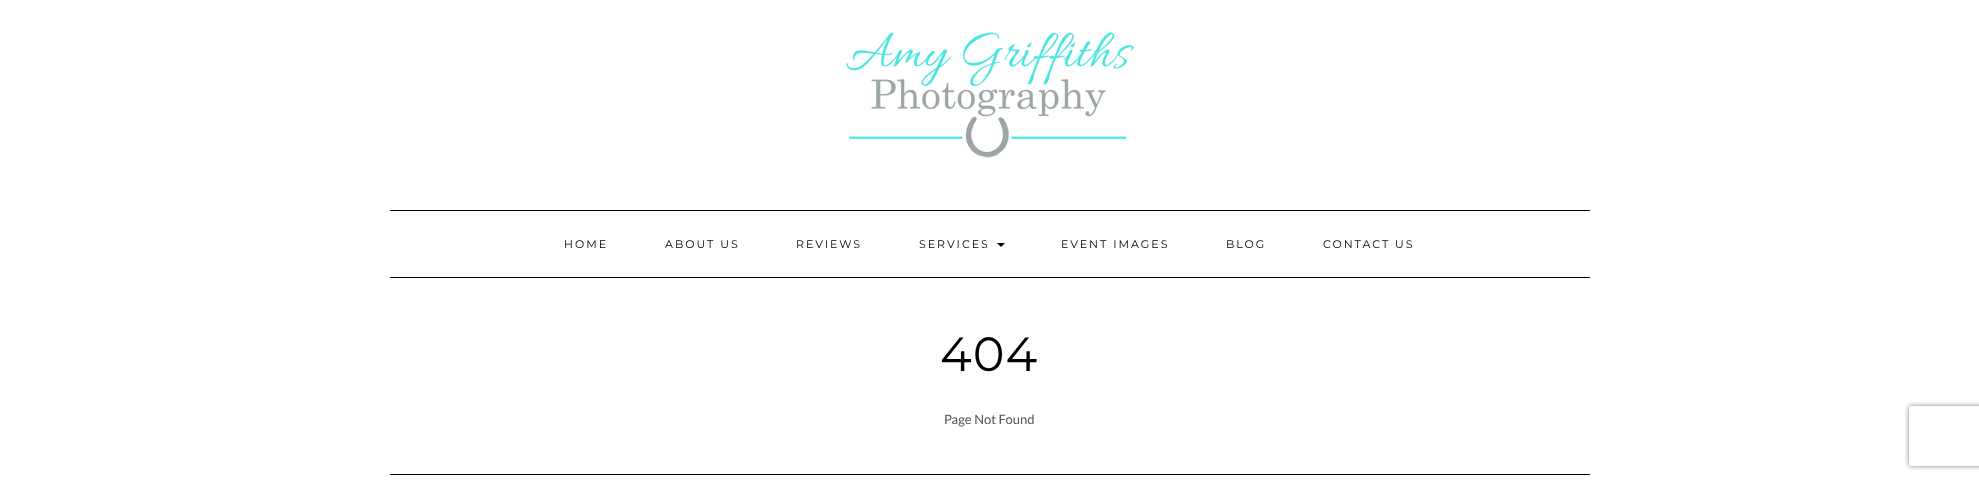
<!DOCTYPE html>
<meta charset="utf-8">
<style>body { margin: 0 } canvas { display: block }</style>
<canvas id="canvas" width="1979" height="480"></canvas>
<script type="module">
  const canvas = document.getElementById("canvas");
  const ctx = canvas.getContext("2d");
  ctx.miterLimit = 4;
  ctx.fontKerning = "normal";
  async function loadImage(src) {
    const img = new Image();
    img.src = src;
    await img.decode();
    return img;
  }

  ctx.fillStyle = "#ffffff";
  ctx.fillRect(0, 0, 1979, 480);
  ctx.drawImage(await loadImage("img1.png"), 846, 32, 288, 126);
  ctx.fillStyle = "#000000";
  ctx.fillRect(390, 210, 1200, 1);
  ctx.fillRect(390, 277, 1200, 1);
  ctx.letterSpacing = "2px";
  ctx.font = "11px Montserrat";
  ctx.fillText("HOME", 564, 248);
  ctx.fillText("ABOUT US", 665, 248);
  ctx.fillText("REVIEWS", 796, 248);
  ctx.fillText("SERVICES", 919, 248);
  ctx.beginPath();
  ctx.moveTo(997, 243);
  ctx.lineTo(1005, 243);
  ctx.lineTo(1001, 247);
  ctx.closePath();
  ctx.fill();
  ctx.fillText("EVENT IMAGES", 1061, 248);
  ctx.fillText("BLOG", 1226, 248);
  ctx.fillText("CONTACT US", 1323, 248);
  ctx.letterSpacing = "1px";
  ctx.font = "48px Montserrat";
  ctx.fillText("404", 940, 371);
  ctx.letterSpacing = "0px";
  ctx.font = "13px Lato";
  ctx.fillStyle = "#545454";
  ctx.fillText("Page Not Found", 944, 424);
  ctx.fillStyle = "#000000";
  ctx.fillRect(390, 474, 1200, 1);
  ctx.save();
  ctx.beginPath();
  ctx.moveTo(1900, 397);
  ctx.lineTo(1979, 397);
  ctx.lineTo(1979, 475);
  ctx.lineTo(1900, 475);
  ctx.closePath();
  ctx.moveTo(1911, 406);
  ctx.lineTo(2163, 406);
  ctx.bezierCurveTo(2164, 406, 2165, 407, 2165, 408);
  ctx.lineTo(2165, 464);
  ctx.bezierCurveTo(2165, 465, 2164, 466, 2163, 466);
  ctx.lineTo(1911, 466);
  ctx.bezierCurveTo(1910, 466, 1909, 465, 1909, 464);
  ctx.lineTo(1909, 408);
  ctx.bezierCurveTo(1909, 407, 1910, 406, 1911, 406);
  ctx.closePath();
  ctx.clip("evenodd");
  ctx.fillStyle = "#808080";
  ctx.filter = "blur(2.5px)";
  ctx.beginPath();
  ctx.roundRect(1909, 406, 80, 60, 2);
  ctx.fill();
  ctx.filter = "none";
  ctx.restore();
</script>
